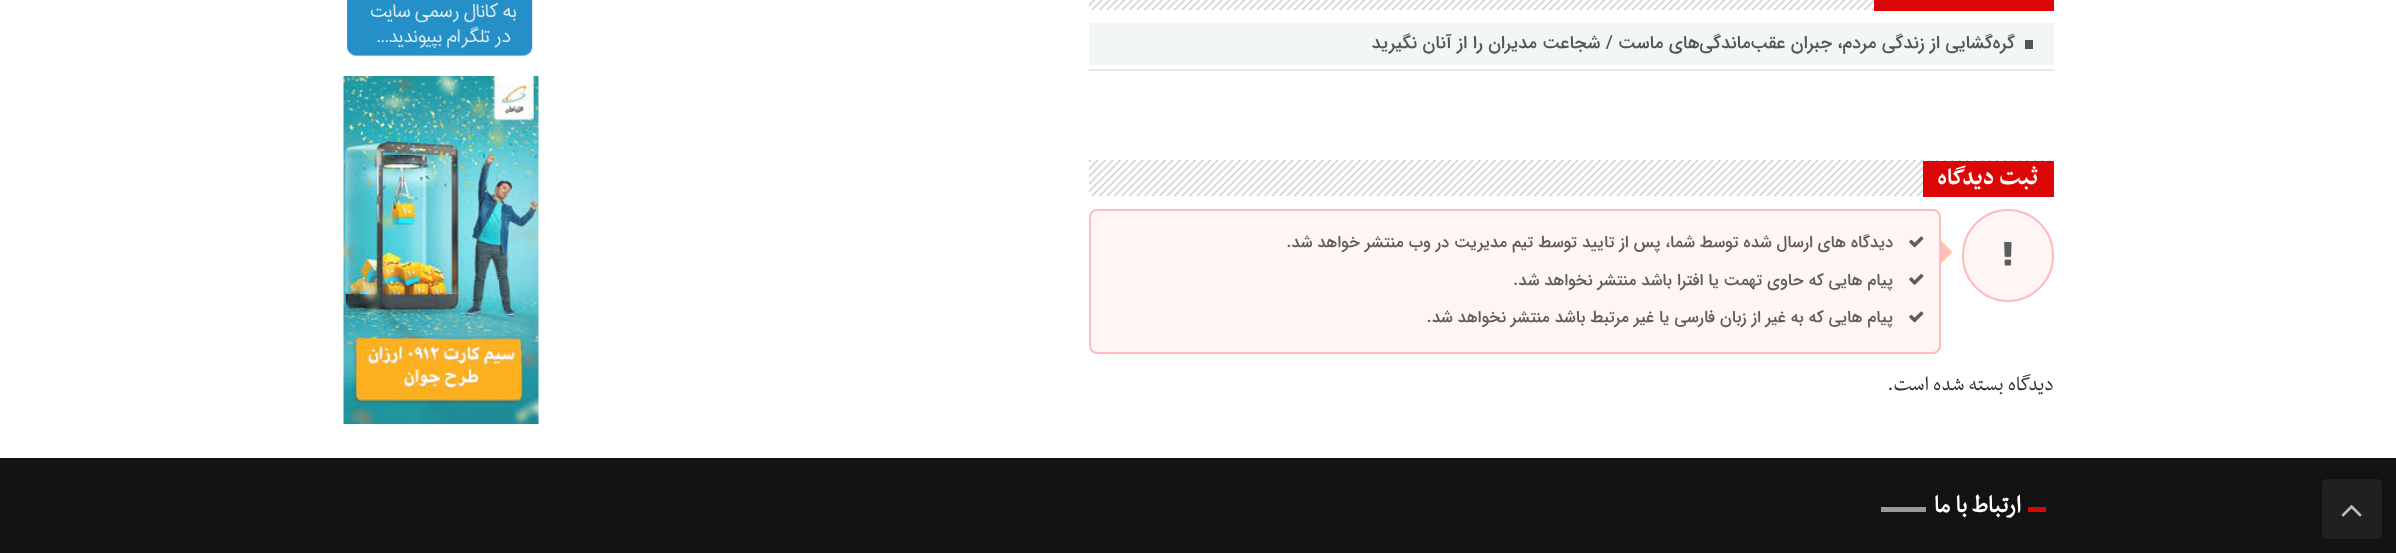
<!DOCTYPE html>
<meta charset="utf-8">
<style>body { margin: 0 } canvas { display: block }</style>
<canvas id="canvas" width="2396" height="553"></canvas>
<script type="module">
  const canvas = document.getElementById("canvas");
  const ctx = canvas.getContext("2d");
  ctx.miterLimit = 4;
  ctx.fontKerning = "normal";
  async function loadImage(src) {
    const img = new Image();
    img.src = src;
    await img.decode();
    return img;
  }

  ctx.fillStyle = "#ffffff";
  ctx.fillRect(0, 0, 2396, 553);
  ctx.drawImage(await loadImage("img1.png"), 1089, 0, 785, 10);
  ctx.fillStyle = "#dd0606";
  ctx.fillRect(1874, 0, 180, 11);
  ctx.fillStyle = "#f3f6f6";
  ctx.fillRect(1089, 23, 965, 42);
  ctx.fillStyle = "#555555";
  ctx.fillRect(2025, 40, 8, 9);
  ctx.direction = "rtl";
  ctx.font = "500 18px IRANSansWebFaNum";
  ctx.fillText("گره‌گشایی از زندگی مردم، جبران عقب‌ماندگی‌های ماست / شجاعت مدیران را از آنان نگیرید", 2015, 48);
  ctx.fillStyle = "#e8e8e8";
  ctx.fillRect(1089, 69, 965, 2);
  ctx.drawImage(await loadImage("img2.png"), 1089, 160, 965, 36);
  ctx.fillStyle = "#dd0606";
  ctx.fillRect(1923, 161, 131, 36);
  ctx.font = "bold 27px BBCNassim";
  ctx.fillStyle = "#ffffff";
  ctx.fillText("ثبت دیدگاه", 2038, 184);
  ctx.fillStyle = "#fff5f5";
  ctx.beginPath();
  ctx.roundRect(1963, 210, 90, 91, 45);
  ctx.fill();
  ctx.strokeStyle = "#ffbbbe";
  ctx.lineWidth = 2;
  ctx.stroke();
  ctx.drawImage(await loadImage("img3.png"), 2004, 241, 8, 25);
  ctx.beginPath();
  ctx.roundRect(1090, 210, 850, 143, 7);
  ctx.fill();
  ctx.stroke();
  ctx.fillStyle = "#ffe38e";
  ctx.beginPath();
  ctx.moveTo(1941, 264);
  ctx.lineTo(1941, 240);
  ctx.lineTo(1953, 252);
  ctx.closePath();
  ctx.fill();
  ctx.fillStyle = "#ffbbbe";
  ctx.beginPath();
  ctx.moveTo(1939.5, 264);
  ctx.lineTo(1939.5, 240);
  ctx.lineTo(1951.5, 252);
  ctx.closePath();
  ctx.fill();
  ctx.drawImage(await loadImage("img4.png"), 1909, 236, 15, 12);
  ctx.font = "500 16.5px IRANSansWebFaNum";
  ctx.fillStyle = "#5d5d5d";
  ctx.fillText("دیدگاه های ارسال شده توسط شما، پس از تایید توسط تیم مدیریت در وب منتشر خواهد شد.", 1893, 247);
  ctx.drawImage(await loadImage("img5.png"), 1909, 274, 15, 11);
  ctx.fillText("پیام هایی که حاوی تهمت یا افترا باشد منتشر نخواهد شد.", 1893, 285);
  ctx.drawImage(await loadImage("img4.png"), 1909, 311, 15, 12);
  ctx.fillText("پیام هایی که به غیر از زبان فارسی یا غیر مرتبط باشد منتشر نخواهد شد.", 1893, 322);
  ctx.font = "23px BBCNassim";
  ctx.fillStyle = "#333333";
  ctx.fillText("دیدگاه بسته شده است.", 2054, 390);
  ctx.drawImage(await loadImage("img6.png"), 347, 0, 186, 56);
  ctx.drawImage(await loadImage("img7.png"), 343, 76, 196, 348);
  ctx.fillStyle = "#121212";
  ctx.fillRect(0, 458, 2396, 95);
  ctx.fillStyle = "#202020";
  ctx.beginPath();
  ctx.roundRect(2322, 479, 60, 60, 5);
  ctx.fill();
  ctx.drawImage(await loadImage("img8.png"), 2341, 505, 21, 12);
  ctx.fillStyle = "#dd0606";
  ctx.fillRect(2028, 507, 18, 5);
  ctx.font = "bold 27px 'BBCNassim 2'";
  ctx.fillStyle = "#ffffff";
  ctx.fillText("ارتباط با ما", 2021, 512);
  ctx.fillStyle = "#9a9a9a";
  ctx.fillRect(1881, 507, 45, 5);
</script>
